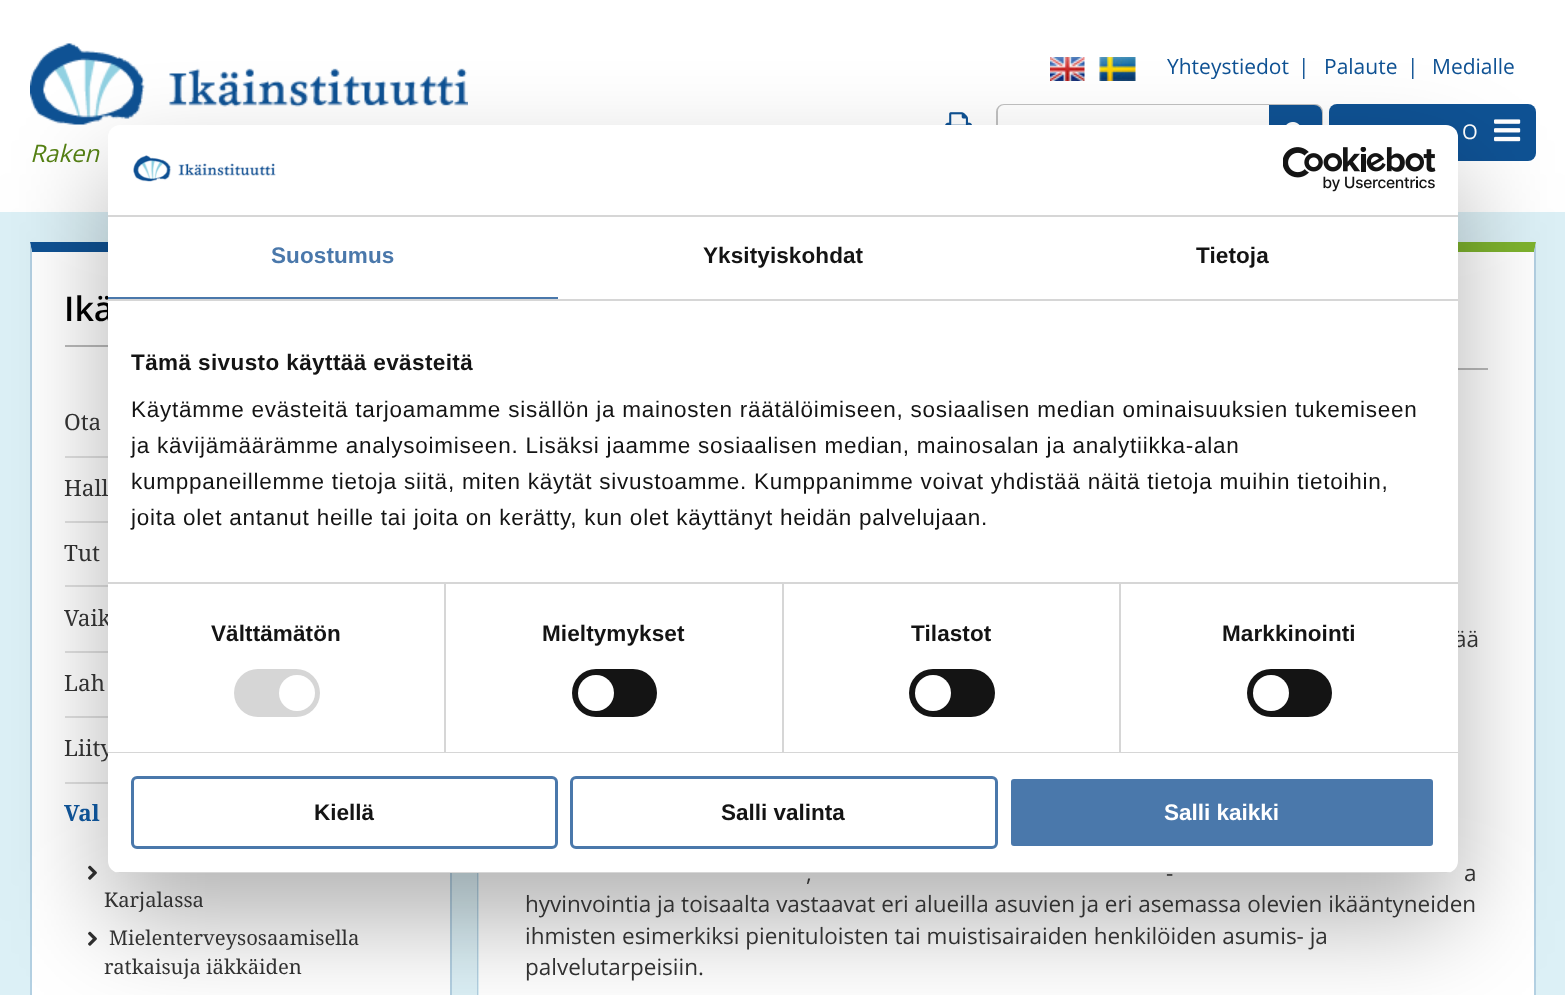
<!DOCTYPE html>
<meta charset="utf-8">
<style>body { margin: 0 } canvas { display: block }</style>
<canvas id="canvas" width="1565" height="995"></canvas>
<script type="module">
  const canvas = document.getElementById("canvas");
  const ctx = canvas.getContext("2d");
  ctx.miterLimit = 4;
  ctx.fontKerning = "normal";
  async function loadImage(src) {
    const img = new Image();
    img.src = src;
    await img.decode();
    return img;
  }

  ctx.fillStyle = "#ffffff";
  ctx.fillRect(0, 0, 1565, 995);
  ctx.drawImage(await loadImage("img1.png"), 1050, 57, 35, 24);
  ctx.drawImage(await loadImage("img2.png"), 1099, 57, 37, 24);
  ctx.font = "21px Open Sans";
  ctx.fillStyle = "#0f5294";
  ctx.fillText("Yhteystiedot", 1167, 74);
  ctx.fillText("|", 1298, 74);
  ctx.fillText("Palaute", 1324, 74);
  ctx.fillText("|", 1407, 74);
  ctx.fillText("Medialle", 1432, 74);
  ctx.drawImage(await loadImage("img3.png"), 945, 112, 27, 13);
  ctx.beginPath();
  ctx.roundRect(997, 105, 325, 53, 7);
  ctx.strokeStyle = "#c1c1c1";
  ctx.lineWidth = 2;
  ctx.stroke();
  ctx.fillStyle = "#ffffff";
  ctx.beginPath();
  ctx.roundRect(998, 105, 274, 53, [6, 0, 0, 6]);
  ctx.fill();
  ctx.fillStyle = "#0f5294";
  ctx.beginPath();
  ctx.roundRect(1269, 105, 53, 53, [0, 8, 8, 0]);
  ctx.fill();
  ctx.drawImage(await loadImage("img4.png"), 1286, 122, 14, 3);
  ctx.beginPath();
  ctx.roundRect(1329, 104, 149, 57, [8, 0, 0, 8]);
  ctx.fill();
  ctx.font = "20.25px Open Sans";
  ctx.fillStyle = "#ffffff";
  ctx.fillText("O", 1462, 139);
  ctx.fillStyle = "#0f5294";
  ctx.beginPath();
  ctx.roundRect(1478, 104, 58, 57, [0, 8, 8, 0]);
  ctx.fill();
  ctx.drawImage(await loadImage("img5.png"), 1494, 119, 27, 23);
  ctx.drawImage(await loadImage("img6.png"), 30, 43, 438, 82);
  ctx.font = "italic 24px Open Sans";
  ctx.fillStyle = "#568214";
  ctx.fillText("Raken", 30, 162);
  ctx.fillStyle = "#dcf0f6";
  ctx.fillRect(0, 212, 1565, 783);
  ctx.fillStyle = "#ffffff";
  ctx.fillRect(32, 252, 418, 743);
  ctx.fillStyle = "#0f5294";
  ctx.beginPath();
  ctx.moveTo(30, 242);
  ctx.lineTo(452, 242);
  ctx.lineTo(450, 252);
  ctx.lineTo(32, 252);
  ctx.closePath();
  ctx.fill();
  ctx.fillStyle = "#b3d0e2";
  ctx.beginPath();
  ctx.moveTo(452, 242);
  ctx.lineTo(452, 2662);
  ctx.lineTo(450, 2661);
  ctx.lineTo(450, 252);
  ctx.closePath();
  ctx.fill();
  ctx.beginPath();
  ctx.moveTo(30, 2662);
  ctx.lineTo(30, 242);
  ctx.lineTo(32, 252);
  ctx.lineTo(32, 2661);
  ctx.closePath();
  ctx.fill();
  ctx.fillStyle = "#bababa";
  ctx.fillRect(65, 345, 43, 2);
  ctx.fillStyle = "#e1e1e1";
  ctx.fillRect(65, 456, 43, 2);
  ctx.fillRect(65, 521, 43, 2);
  ctx.fillRect(65, 585, 43, 2);
  ctx.fillRect(65, 651, 43, 2);
  ctx.fillRect(65, 716, 43, 2);
  ctx.fillRect(65, 782, 43, 2);
  ctx.drawImage(await loadImage("img9.png"), 88, 865, 9, 15);
  ctx.drawImage(await loadImage("img9.png"), 88, 931, 9, 15);
  ctx.fillStyle = "#ffffff";
  ctx.fillRect(479, 252, 1055, 743);
  ctx.fillStyle = "#7eb32e";
  ctx.beginPath();
  ctx.moveTo(477, 242);
  ctx.lineTo(1536, 242);
  ctx.lineTo(1534, 252);
  ctx.lineTo(478, 252);
  ctx.closePath();
  ctx.fill();
  ctx.fillStyle = "#b3d0e2";
  ctx.beginPath();
  ctx.moveTo(1536, 242);
  ctx.lineTo(1536, 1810);
  ctx.lineTo(1534, 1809);
  ctx.lineTo(1534, 252);
  ctx.closePath();
  ctx.fill();
  ctx.beginPath();
  ctx.moveTo(477, 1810);
  ctx.lineTo(477, 242);
  ctx.lineTo(478, 252);
  ctx.lineTo(478, 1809);
  ctx.closePath();
  ctx.fill();
  ctx.fillStyle = "#bababa";
  ctx.fillRect(1458, 368, 30, 2);
  ctx.fillStyle = "rgba(0, 0, 0, 0.3)";
  ctx.filter = "blur(51px)";
  ctx.beginPath();
  ctx.roundRect(108, 173, 1350, 748, 12);
  ctx.fill();
  ctx.filter = "none";
  ctx.font = "600 34px Open Sans";
  ctx.fillStyle = "#000000";
  ctx.fillText("Ikä", 64, 321);
  ctx.font = "22.5px Droid Serif";
  ctx.fillStyle = "#313131";
  ctx.fillText("Hall", 64, 496);
  ctx.fillText("Vaik", 64, 626);
  ctx.fillText("Liity", 64, 756);
  ctx.font = "22.5px Open Sans";
  ctx.fillText("ää", 1454, 647);
  ctx.fillStyle = "#ffffff";
  ctx.beginPath();
  ctx.roundRect(108, 125, 1350, 748, 12);
  ctx.fill();
  ctx.fillStyle = "#d6d6d6";
  ctx.fillRect(108, 215, 1350, 2);
  ctx.drawImage(await loadImage("img7.png"), 133, 155, 143, 27);
  ctx.drawImage(await loadImage("img8.png"), 1283, 147, 153, 45);
  ctx.fillRect(108, 299, 1350, 2);
  ctx.fillStyle = "#4a78ab";
  ctx.fillRect(108, 297, 450, 2);
  ctx.letterSpacing = "0.1px";
  ctx.font = "bold 22.5px Liberation Sans";
  ctx.fillText("Suostumus", 271, 263);
  ctx.fillStyle = "#141414";
  ctx.fillText("Yksityiskohdat", 703, 263);
  ctx.fillText("Tietoja", 1196, 263);
  ctx.fillStyle = "#d6d6d6";
  ctx.fillRect(108, 582, 1350, 2);
  ctx.letterSpacing = "0.4px";
  ctx.fillStyle = "#141414";
  ctx.fillText("Tämä sivusto käyttää evästeitä", 131, 370);
  ctx.letterSpacing = "0.75px";
  ctx.font = "22.5px Liberation Sans";
  ctx.fillText("Käytämme evästeitä tarjoamamme sisällön ja mainosten räätälöimiseen, sosiaalisen median ominaisuuksien tukemiseen", 131, 417);
  ctx.fillText("ja kävijämäärämme analysoimiseen. Lisäksi jaamme sosiaalisen median, mainosalan ja analytiikka-alan", 131, 453);
  ctx.fillText("kumppaneillemme tietoja siitä, miten käytät sivustoamme. Kumppanimme voivat yhdistää näitä tietoja muihin tietoihin,", 131, 489);
  ctx.fillText("joita olet antanut heille tai joita on kerätty, kun olet käyttänyt heidän palvelujaan.", 131, 525);
  ctx.fillStyle = "#d6d6d6";
  ctx.fillRect(108, 752, 1350, 1);
  ctx.fillRect(444, 584, 2, 168);
  ctx.letterSpacing = "0.1px";
  ctx.font = "bold 22.5px Liberation Sans";
  ctx.fillStyle = "#141414";
  ctx.fillText("Välttämätön", 211, 641);
  ctx.fillStyle = "#d6d6d6";
  ctx.beginPath();
  ctx.roundRect(234, 669, 86, 48, 24);
  ctx.fill();
  ctx.fillStyle = "#ffffff";
  ctx.beginPath();
  ctx.arc(297, 693, 18, 0, Math.PI * 2);
  ctx.fill();
  ctx.fillStyle = "#d6d6d6";
  ctx.fillRect(782, 584, 2, 168);
  ctx.fillStyle = "#141414";
  ctx.fillText("Mieltymykset", 542, 641);
  ctx.beginPath();
  ctx.roundRect(572, 669, 85, 48, 24);
  ctx.fill();
  ctx.fillStyle = "#ffffff";
  ctx.beginPath();
  ctx.arc(596, 693, 18, 0, Math.PI * 2);
  ctx.fill();
  ctx.fillStyle = "#d6d6d6";
  ctx.fillRect(1119, 584, 2, 168);
  ctx.fillStyle = "#141414";
  ctx.fillText("Tilastot", 911, 641);
  ctx.beginPath();
  ctx.roundRect(909, 669, 86, 48, 24);
  ctx.fill();
  ctx.fillStyle = "#ffffff";
  ctx.beginPath();
  ctx.arc(933, 693, 18, 0, Math.PI * 2);
  ctx.fill();
  ctx.fillStyle = "#141414";
  ctx.fillText("Markkinointi", 1222, 641);
  ctx.beginPath();
  ctx.roundRect(1247, 669, 85, 48, 24);
  ctx.fill();
  ctx.fillStyle = "#ffffff";
  ctx.beginPath();
  ctx.arc(1271, 693, 18, 0, Math.PI * 2);
  ctx.fill();
  ctx.save();
  ctx.beginPath();
  ctx.roundRect(108, 125, 1350, 748, 12);
  ctx.clip();
  ctx.fillStyle = "#d6d6d6";
  ctx.fillRect(108, 872, 1350, 1);
  ctx.restore();
  ctx.beginPath();
  ctx.roundRect(132.5, 777.5, 424, 70, 4.5);
  ctx.strokeStyle = "#4a78ab";
  ctx.lineWidth = 3;
  ctx.stroke();
  ctx.letterSpacing = "0px";
  ctx.fillStyle = "#141414";
  ctx.fillText("Kiellä", 314, 820);
  ctx.beginPath();
  ctx.roundRect(571.5, 777.5, 425, 70, 4.5);
  ctx.stroke();
  ctx.fillText("Salli valinta", 721, 820);
  ctx.fillStyle = "#4a78ab";
  ctx.beginPath();
  ctx.roundRect(1009.5, 777.5, 425, 70, 4.5);
  ctx.fill();
  ctx.strokeStyle = "#ffffff";
  ctx.stroke();
  ctx.fillStyle = "#ffffff";
  ctx.fillText("Salli kaikki", 1164, 820);
  ctx.font = "22.5px Droid Serif";
  ctx.fillStyle = "#313131";
  ctx.fillText("Ota", 64, 430);
  ctx.fillText("Tut", 64, 561);
  ctx.fillText("Lah", 64, 691);
  ctx.font = "bold 22.5px Droid Serif";
  ctx.fillStyle = "#0f5294";
  ctx.fillText("Val", 64, 821);
  ctx.font = "20.25px Droid Serif";
  ctx.fillStyle = "#313131";
  ctx.fillText("Karjalassa", 104, 907);
  ctx.fillText("Mielenterveysosaamisella", 109, 945);
  ctx.fillText("ratkaisuja iäkkäiden", 104, 974);
  ctx.font = "22.5px Open Sans";
  ctx.fillText("-", 1166, 881);
  ctx.fillText("a", 1464, 881);
  ctx.fillText(",", 806, 881);
  ctx.fillText("hyvinvointia ja toisaalta vastaavat eri alueilla asuvien ja eri asemassa olevien ikääntyneiden", 525, 912);
  ctx.fillText("ihmisten esimerkiksi pienituloisten tai muistisairaiden henkilöiden asumis- ja", 525, 944);
  ctx.fillText("palvelutarpeisiin.", 525, 975);
</script>
